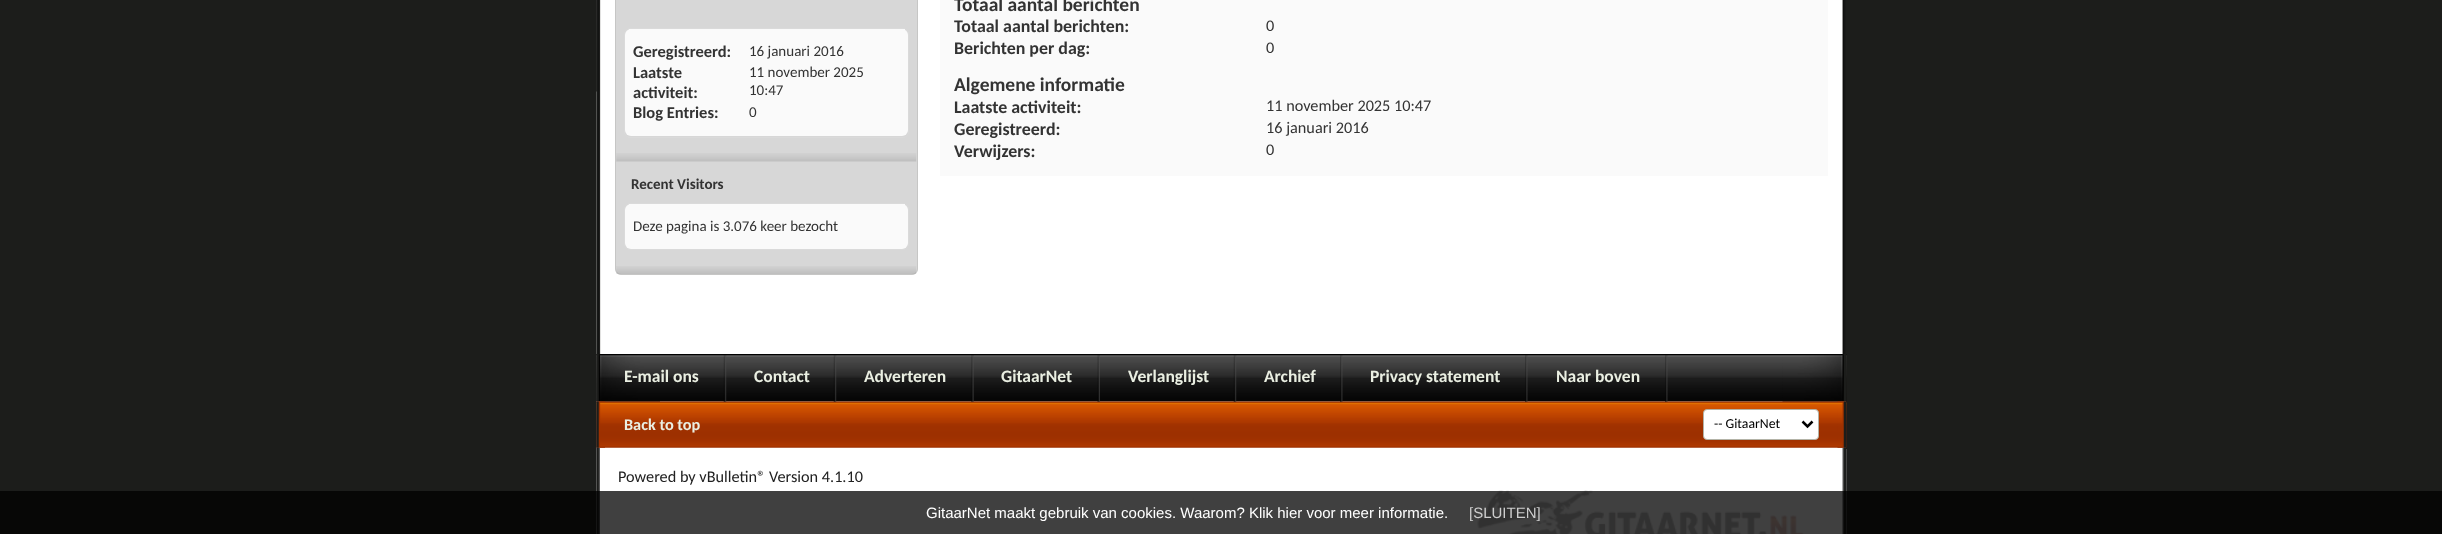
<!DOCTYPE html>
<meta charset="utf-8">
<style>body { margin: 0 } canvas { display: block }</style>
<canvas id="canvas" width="2442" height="534"></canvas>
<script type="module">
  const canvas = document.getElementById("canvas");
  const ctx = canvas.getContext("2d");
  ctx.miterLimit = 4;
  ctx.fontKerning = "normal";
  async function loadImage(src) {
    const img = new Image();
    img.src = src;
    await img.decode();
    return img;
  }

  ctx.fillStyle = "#1c1d1b";
  ctx.fillRect(0, 0, 2442, 534);
  ctx.fillStyle = "#ffffff";
  ctx.fillRect(596, 0, 1250, 534);
  ctx.drawImage(await loadImage("img1.png"), 596, 0, 5, 354);
  ctx.drawImage(await loadImage("img2.png"), 1842, 0, 4, 354);
  ctx.drawImage(await loadImage("img3.png"), 596, 0, 1, 92);
  ctx.fillStyle = "#d7d7d7";
  ctx.beginPath();
  ctx.roundRect(615.5, -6.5, 302, 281, 5.5);
  ctx.fill();
  ctx.strokeStyle = "#c6c6c5";
  ctx.stroke();
  ctx.beginPath();
  ctx.roundRect(624.5, 28.5, 284, 109, 5.5);
  ctx.strokeStyle = "#dadada";
  ctx.stroke();
  ctx.fillStyle = "#fafafa";
  ctx.beginPath();
  ctx.roundRect(625, 29, 283, 107, 6);
  ctx.fill();
  ctx.fillRect(629, 29, 276, 1);
  ctx.font = "bold 16.5px Carlito";
  ctx.fillStyle = "#333333";
  ctx.fillText("Geregistreerd:", 633, 57);
  ctx.font = "15px Carlito";
  ctx.fillText("16 januari 2016", 749, 56);
  ctx.font = "bold 16.5px Carlito";
  ctx.fillText("Laatste", 633, 78);
  ctx.fillText("activiteit:", 633, 98);
  ctx.font = "15px Carlito";
  ctx.fillText("11 november 2025", 749, 77);
  ctx.fillText("10:47", 749, 95);
  ctx.font = "bold 16.5px Carlito";
  ctx.fillText("Blog Entries:", 633, 118);
  ctx.font = "15px Carlito";
  ctx.fillText("0", 749, 117);
  ctx.drawImage(await loadImage("img4.png"), 616, 153, 301, 9);
  ctx.font = "bold 15px Carlito";
  ctx.fillText("Recent Visitors", 631, 189);
  ctx.beginPath();
  ctx.roundRect(624.5, 203.5, 284, 46, 5.5);
  ctx.stroke();
  ctx.fillStyle = "#fafafa";
  ctx.beginPath();
  ctx.roundRect(625, 204, 283, 45, 6);
  ctx.fill();
  ctx.fillRect(629, 204, 276, 1);
  ctx.font = "15px Carlito";
  ctx.fillStyle = "#333333";
  ctx.fillText("Deze pagina is 3.076 keer bezocht", 633, 231);
  ctx.drawImage(await loadImage("img5.png"), 616, 266, 301, 8);
  ctx.fillStyle = "#fafafa";
  ctx.fillRect(940, 0, 888, 176);
  ctx.font = "bold 19.5px Carlito";
  ctx.fillStyle = "#333333";
  ctx.fillText("Totaal aantal berichten", 954, 11);
  ctx.font = "bold 17.9px Carlito";
  ctx.fillText("Totaal aantal berichten:", 954, 32);
  ctx.font = "16.25px Carlito";
  ctx.fillText("0", 1266, 31);
  ctx.font = "bold 17.9px Carlito";
  ctx.fillText("Berichten per dag:", 954, 54);
  ctx.font = "16.25px Carlito";
  ctx.fillText("0", 1266, 53);
  ctx.font = "bold 19.5px Carlito";
  ctx.fillText("Algemene informatie", 954, 91);
  ctx.font = "bold 17.9px Carlito";
  ctx.fillText("Laatste activiteit:", 954, 113);
  ctx.font = "16.25px Carlito";
  ctx.fillText("11 november 2025 10:47", 1266, 111);
  ctx.font = "bold 17.9px Carlito";
  ctx.fillText("Geregistreerd:", 954, 135);
  ctx.font = "16.25px Carlito";
  ctx.fillText("16 januari 2016", 1266, 133);
  ctx.font = "bold 17.9px Carlito";
  ctx.fillText("Verwijzers:", 954, 157);
  ctx.font = "16.25px Carlito";
  ctx.fillText("0", 1266, 155);
  ctx.drawImage(await loadImage("img6.png"), 596, 354, 1251, 48);
  ctx.drawImage(await loadImage("img7.png"), 596, 354, 64, 48);
  ctx.drawImage(await loadImage("img8.png"), 1782, 354, 65, 48);
  ctx.drawImage(await loadImage("img13.png"), 596, 401, 1251, 47);
  ctx.drawImage(await loadImage("img9.png"), 723, 355, 4, 47);
  ctx.font = "bold 17.5px Carlito";
  ctx.fillStyle = "#eaefe2";
  ctx.fillText("E-mail ons", 624, 382);
  ctx.drawImage(await loadImage("img9.png"), 833, 355, 4, 47);
  ctx.fillText("Contact", 754, 382);
  ctx.drawImage(await loadImage("img10.png"), 971, 355, 3, 47);
  ctx.fillText("Adverteren", 864, 382);
  ctx.drawImage(await loadImage("img11.png"), 1097, 355, 3, 47);
  ctx.fillText("GitaarNet", 1001, 382);
  ctx.drawImage(await loadImage("img9.png"), 1233, 355, 4, 47);
  ctx.fillText("Verlanglijst", 1128, 382);
  ctx.drawImage(await loadImage("img12.png"), 1340, 355, 3, 47);
  ctx.fillText("Archief", 1264, 382);
  ctx.drawImage(await loadImage("img12.png"), 1525, 355, 3, 47);
  ctx.fillText("Privacy statement", 1370, 382);
  ctx.drawImage(await loadImage("img12.png"), 1665, 355, 3, 47);
  ctx.fillText("Naar boven", 1556, 382);
  ctx.drawImage(await loadImage("img14.png"), 596, 401, 9, 47);
  ctx.drawImage(await loadImage("img15.png"), 1837, 401, 10, 47);
  ctx.font = "bold 16.25px Carlito";
  ctx.fillText("Back to top", 624, 430);
  ctx.fillStyle = "#ffffff";
  ctx.beginPath();
  ctx.roundRect(1703.5, 409.5, 115, 30, 3.5);
  ctx.fill();
  ctx.strokeStyle = "#b3b3a7";
  ctx.stroke();
  ctx.beginPath();
  ctx.moveTo(1802.5, 421.5);
  ctx.lineTo(1807.5, 426.5);
  ctx.lineTo(1812.5, 421.5);
  ctx.strokeStyle = "#000000";
  ctx.lineWidth = 2.5;
  ctx.stroke();
  ctx.font = "13.75px Carlito";
  ctx.fillStyle = "#000000";
  ctx.fillText("-- GitaarNet", 1714, 428);
  ctx.drawImage(await loadImage("img16.png"), 1846, 449, 1, 85);
  ctx.drawImage(await loadImage("img17.png"), 596, 447, 4, 87);
  ctx.drawImage(await loadImage("img18.png"), 1842, 447, 5, 87);
  ctx.font = "16.25px Carlito";
  ctx.fillStyle = "#212121";
  ctx.fillText("Powered by vBulletin® Version 4.1.10", 618, 482);
  ctx.drawImage(await loadImage("img19.png"), 1477, 490, 327, 44);
  ctx.fillStyle = "rgba(0, 0, 0, 0.75)";
  ctx.fillRect(0, 491, 2442, 43);
  ctx.font = "15px Liberation Sans";
  ctx.fillStyle = "#ffffff";
  ctx.fillText("GitaarNet maakt gebruik van cookies. Waarom? Klik hier voor meer informatie.", 926, 518);
  ctx.fillStyle = "#cdcdcd";
  ctx.fillText("[SLUITEN]", 1469, 518);
</script>
